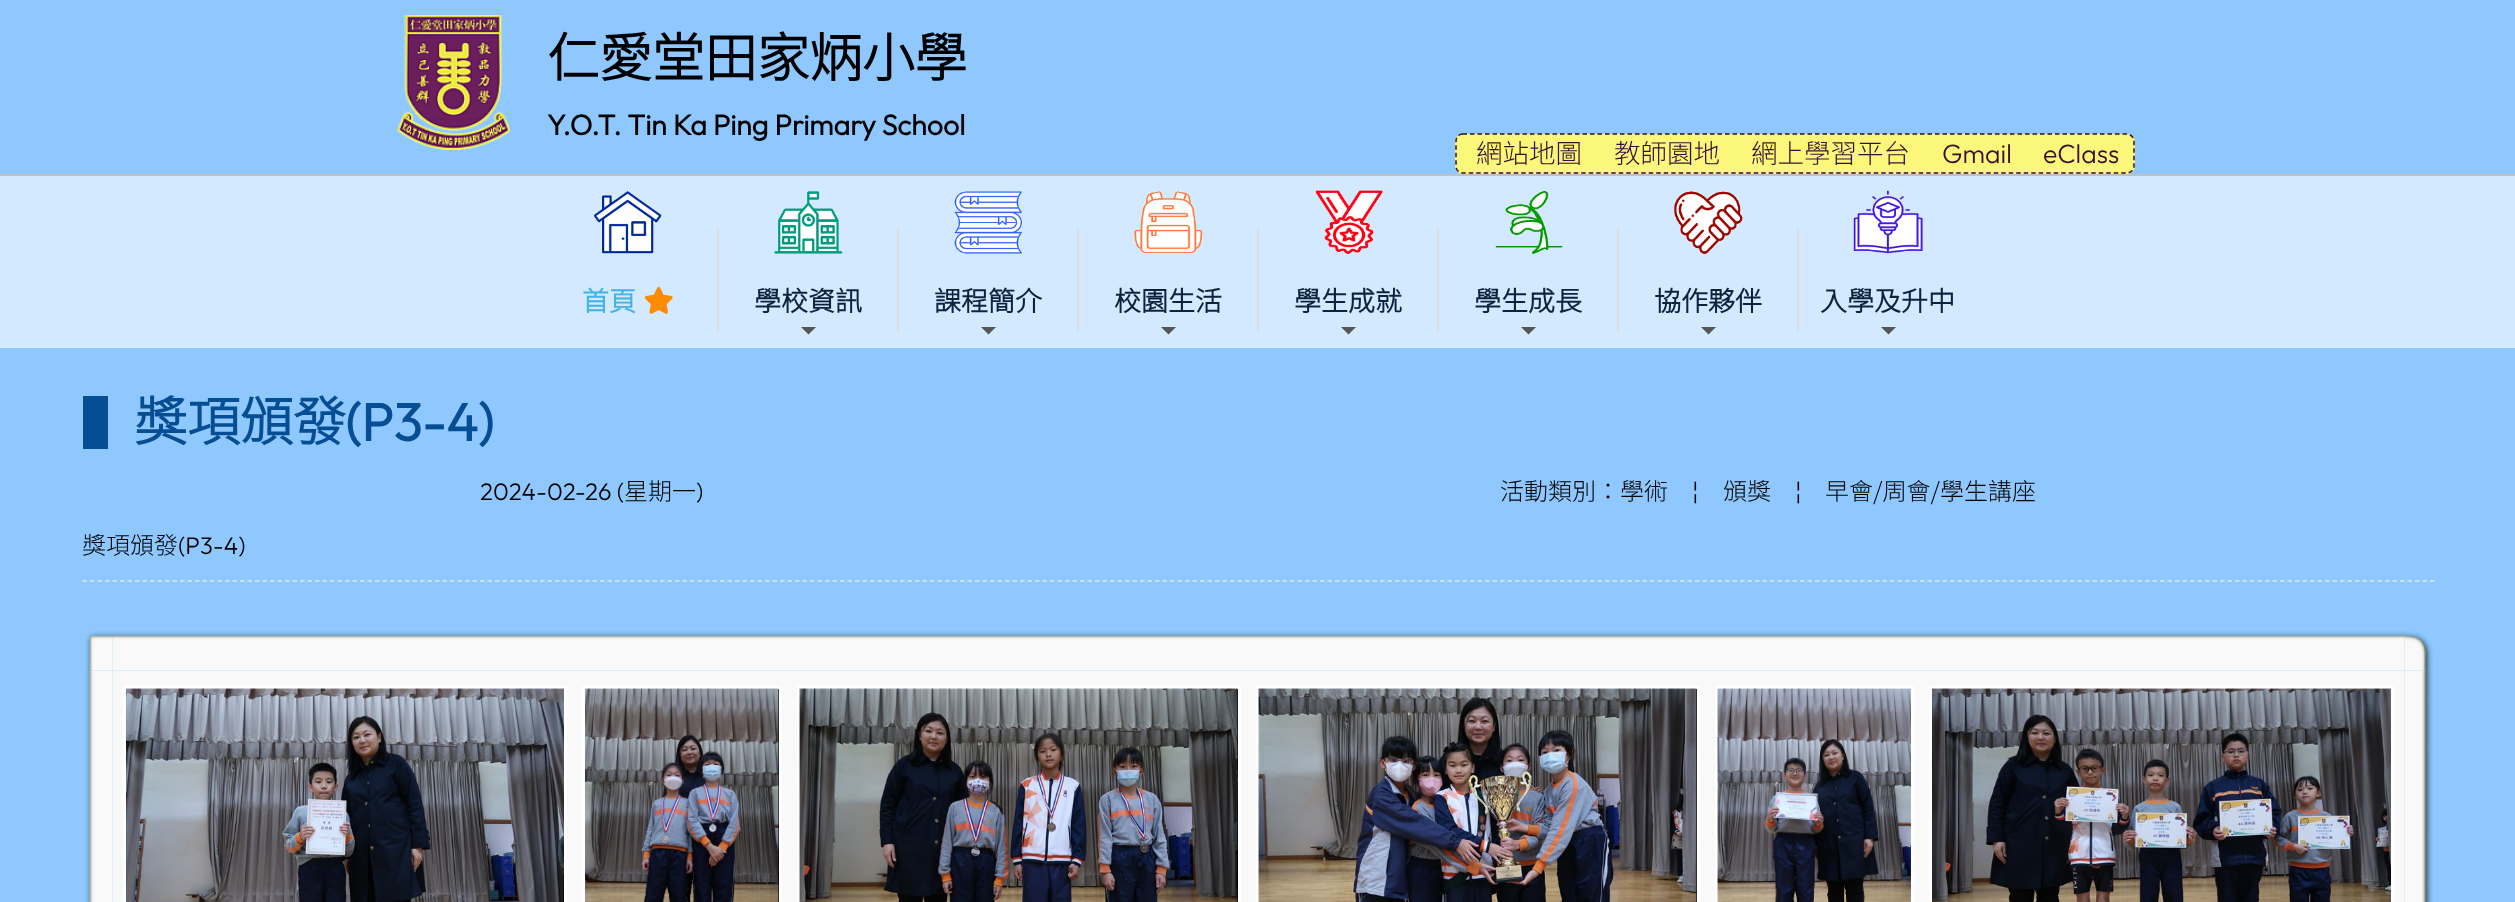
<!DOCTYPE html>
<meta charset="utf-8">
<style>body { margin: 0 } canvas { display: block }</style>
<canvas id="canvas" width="2515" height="902"></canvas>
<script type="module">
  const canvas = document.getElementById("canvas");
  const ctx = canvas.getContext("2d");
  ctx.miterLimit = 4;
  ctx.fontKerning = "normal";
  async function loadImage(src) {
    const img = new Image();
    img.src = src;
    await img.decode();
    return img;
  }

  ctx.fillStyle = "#8ec8fe";
  ctx.fillRect(0, 0, 2515, 902);
  ctx.drawImage(await loadImage("img1.png"), 397, 15, 113, 135);
  ctx.font = "bold 52.5px Noto Sans HK";
  ctx.fillStyle = "#000000";
  ctx.fillText("仁愛堂田家炳小學", 547, 77);
  ctx.font = "bold 28.5px Outfit";
  ctx.fillText("Y.O.T. Tin Ka Ping Primary School", 547, 135);
  ctx.fillStyle = "#fbf77a";
  ctx.beginPath();
  ctx.roundRect(1455, 134, 680, 40, 8);
  ctx.fill();
  ctx.beginPath();
  ctx.moveTo(1462.5, 134);
  ctx.lineTo(2127, 134);
  ctx.bezierCurveTo(2130.5, 134, 2134, 137.5, 2134, 141);
  ctx.lineTo(2134, 166.5);
  ctx.bezierCurveTo(2134, 170, 2130.5, 173, 2127, 173);
  ctx.lineTo(1462.5, 173);
  ctx.bezierCurveTo(1459, 173, 1456, 170, 1456, 166.5);
  ctx.lineTo(1456, 141);
  ctx.bezierCurveTo(1456, 137.5, 1459, 134, 1462.5, 134);
  ctx.closePath();
  ctx.strokeStyle = "#380d31";
  ctx.lineWidth = 1.5;
  ctx.setLineDash([4.5, 3]);
  ctx.stroke();
  ctx.font = "100 26.5px Noto Sans HK";
  ctx.fillStyle = "#380d31";
  ctx.fillText("網站地圖", 1476, 163);
  ctx.fillText("教師園地", 1614, 163);
  ctx.fillText("網上學習平台", 1751, 163);
  ctx.font = "100 26.5px Outfit";
  ctx.fillText("Gmail", 1942, 163);
  ctx.fillText("eClass", 2043, 163);
  ctx.fillStyle = "#d2e9ff";
  ctx.fillRect(0, 176, 2515, 172);
  ctx.fillStyle = "#c0c1c2";
  ctx.fillRect(0, 174, 2515, 2);
  ctx.drawImage(await loadImage("img2.png"), 593, 191, 69, 63);
  ctx.font = "bold 27px Noto Sans HK";
  ctx.fillStyle = "#44b2e5";
  ctx.fillText("首頁", 582, 311);
  ctx.drawImage(await loadImage("img3.png"), 644, 286, 29, 28);
  ctx.fillStyle = "#dddddd";
  ctx.fillRect(717, 228, 2, 104);
  ctx.drawImage(await loadImage("img4.png"), 774, 191, 69, 63);
  ctx.fillStyle = "#0c2340";
  ctx.fillText("學校資訊", 754, 311);
  ctx.fillStyle = "#555555";
  ctx.beginPath();
  ctx.moveTo(801, 327);
  ctx.lineTo(816, 327);
  ctx.lineTo(808.5, 334.5);
  ctx.closePath();
  ctx.fill();
  ctx.fillStyle = "#dddddd";
  ctx.fillRect(897, 228, 2, 104);
  ctx.drawImage(await loadImage("img5.png"), 954, 191, 69, 63);
  ctx.fillStyle = "#0c2340";
  ctx.fillText("課程簡介", 934, 311);
  ctx.fillStyle = "#555555";
  ctx.beginPath();
  ctx.moveTo(981, 327);
  ctx.lineTo(996, 327);
  ctx.lineTo(988.5, 334.5);
  ctx.closePath();
  ctx.fill();
  ctx.fillStyle = "#dddddd";
  ctx.fillRect(1077, 228, 2, 104);
  ctx.drawImage(await loadImage("img6.png"), 1134, 191, 69, 63);
  ctx.fillStyle = "#0c2340";
  ctx.fillText("校園生活", 1114, 311);
  ctx.fillStyle = "#555555";
  ctx.beginPath();
  ctx.moveTo(1161, 327);
  ctx.lineTo(1176, 327);
  ctx.lineTo(1168.5, 334.5);
  ctx.closePath();
  ctx.fill();
  ctx.fillStyle = "#dddddd";
  ctx.fillRect(1257, 228, 2, 104);
  ctx.drawImage(await loadImage("img7.png"), 1315, 190, 68, 65);
  ctx.fillStyle = "#0c2340";
  ctx.fillText("學生成就", 1294, 311);
  ctx.fillStyle = "#555555";
  ctx.beginPath();
  ctx.moveTo(1341, 327);
  ctx.lineTo(1356, 327);
  ctx.lineTo(1348.5, 334.5);
  ctx.closePath();
  ctx.fill();
  ctx.fillStyle = "#dddddd";
  ctx.fillRect(1437, 228, 2, 104);
  ctx.drawImage(await loadImage("img8.png"), 1495, 190, 68, 64);
  ctx.fillStyle = "#0c2340";
  ctx.fillText("學生成長", 1474, 311);
  ctx.fillStyle = "#555555";
  ctx.beginPath();
  ctx.moveTo(1521, 327);
  ctx.lineTo(1536, 327);
  ctx.lineTo(1528.5, 334.5);
  ctx.closePath();
  ctx.fill();
  ctx.fillStyle = "#dddddd";
  ctx.fillRect(1617, 228, 2, 104);
  ctx.drawImage(await loadImage("img9.png"), 1673, 191, 70, 64);
  ctx.fillStyle = "#0c2340";
  ctx.fillText("協作夥伴", 1654, 311);
  ctx.fillStyle = "#555555";
  ctx.beginPath();
  ctx.moveTo(1701, 327);
  ctx.lineTo(1716, 327);
  ctx.lineTo(1708.5, 334.5);
  ctx.closePath();
  ctx.fill();
  ctx.fillStyle = "#dddddd";
  ctx.fillRect(1797, 228, 2, 104);
  ctx.drawImage(await loadImage("img10.png"), 1853, 190, 70, 64);
  ctx.fillStyle = "#0c2340";
  ctx.fillText("入學及升中", 1820, 311);
  ctx.fillStyle = "#555555";
  ctx.beginPath();
  ctx.moveTo(1881, 327);
  ctx.lineTo(1896, 327);
  ctx.lineTo(1888.5, 334.5);
  ctx.closePath();
  ctx.fill();
  ctx.fillStyle = "#054e93";
  ctx.fillRect(83, 396, 25, 53);
  ctx.font = "bold 53px Noto Sans HK";
  ctx.fillText("獎項頒發", 134, 441);
  ctx.font = "bold 53px Outfit";
  ctx.fillText("(P3-4)", 345, 441);
  ctx.font = "100 24px Outfit";
  ctx.fillStyle = "#000000";
  ctx.fillText("2024-02-26 (", 480, 500);
  ctx.font = "100 24px Noto Sans HK";
  ctx.fillText("星期一", 624, 500);
  ctx.font = "100 24px Outfit";
  ctx.fillText(")", 696, 500);
  ctx.font = "100 24px Noto Sans HK";
  ctx.fillText("活動類別：學術", 1500, 500);
  ctx.font = "100 24px Outfit";
  ctx.fillText("¦", 1692, 500);
  ctx.font = "100 24px Noto Sans HK";
  ctx.fillText("頒獎", 1723, 500);
  ctx.font = "100 24px Outfit";
  ctx.fillText("¦", 1795, 500);
  ctx.font = "100 24px Noto Sans HK";
  ctx.fillText("早會/周會/學生講座", 1825, 500);
  ctx.beginPath();
  ctx.moveTo(82.5, 581);
  ctx.lineTo(2434.5, 581);
  ctx.strokeStyle = "#e5e5e5";
  ctx.stroke();
  ctx.fillText("獎項頒發", 82, 554);
  ctx.font = "100 24px Outfit";
  ctx.fillText("(P3-4)", 178, 554);
  ctx.drawImage(await loadImage("img11.png"), 85, 631, 2348, 271);
  ctx.strokeStyle = "#ffffff";
  ctx.lineWidth = 3;
  ctx.setLineDash([]);
  ctx.strokeRect(124.5, 687.5, 441, 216);
  ctx.drawImage(await loadImage("img12.png"), 126, 688, 438, 214);
  ctx.drawImage(await loadImage("img13.png"), 126, 688, 438, 1);
  ctx.fillRect(778, 689, 1, 213);
  ctx.strokeRect(583.5, 687.5, 197, 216);
  ctx.drawImage(await loadImage("img14.png"), 585, 688, 194, 214);
  ctx.drawImage(await loadImage("img15.png"), 585, 688, 194, 214);
  ctx.fillRect(1237, 689, 1, 213);
  ctx.strokeRect(798.5, 687.5, 441, 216);
  ctx.drawImage(await loadImage("img16.png"), 799, 688, 439, 214);
  ctx.drawImage(await loadImage("img17.png"), 799, 688, 439, 214);
  ctx.fillRect(1696, 689, 1, 213);
  ctx.strokeRect(1257.5, 687.5, 441, 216);
  ctx.drawImage(await loadImage("img18.png"), 1258, 688, 439, 214);
  ctx.drawImage(await loadImage("img19.png"), 1258, 688, 439, 214);
  ctx.strokeRect(1716.5, 687.5, 196, 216);
  ctx.drawImage(await loadImage("img20.png"), 1717, 688, 194, 214);
  ctx.drawImage(await loadImage("img21.png"), 1717, 688, 194, 214);
  ctx.strokeRect(1930.5, 687.5, 462, 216);
  ctx.drawImage(await loadImage("img22.png"), 1932, 688, 459, 214);
  ctx.drawImage(await loadImage("img23.png"), 1932, 688, 459, 1);
</script>
